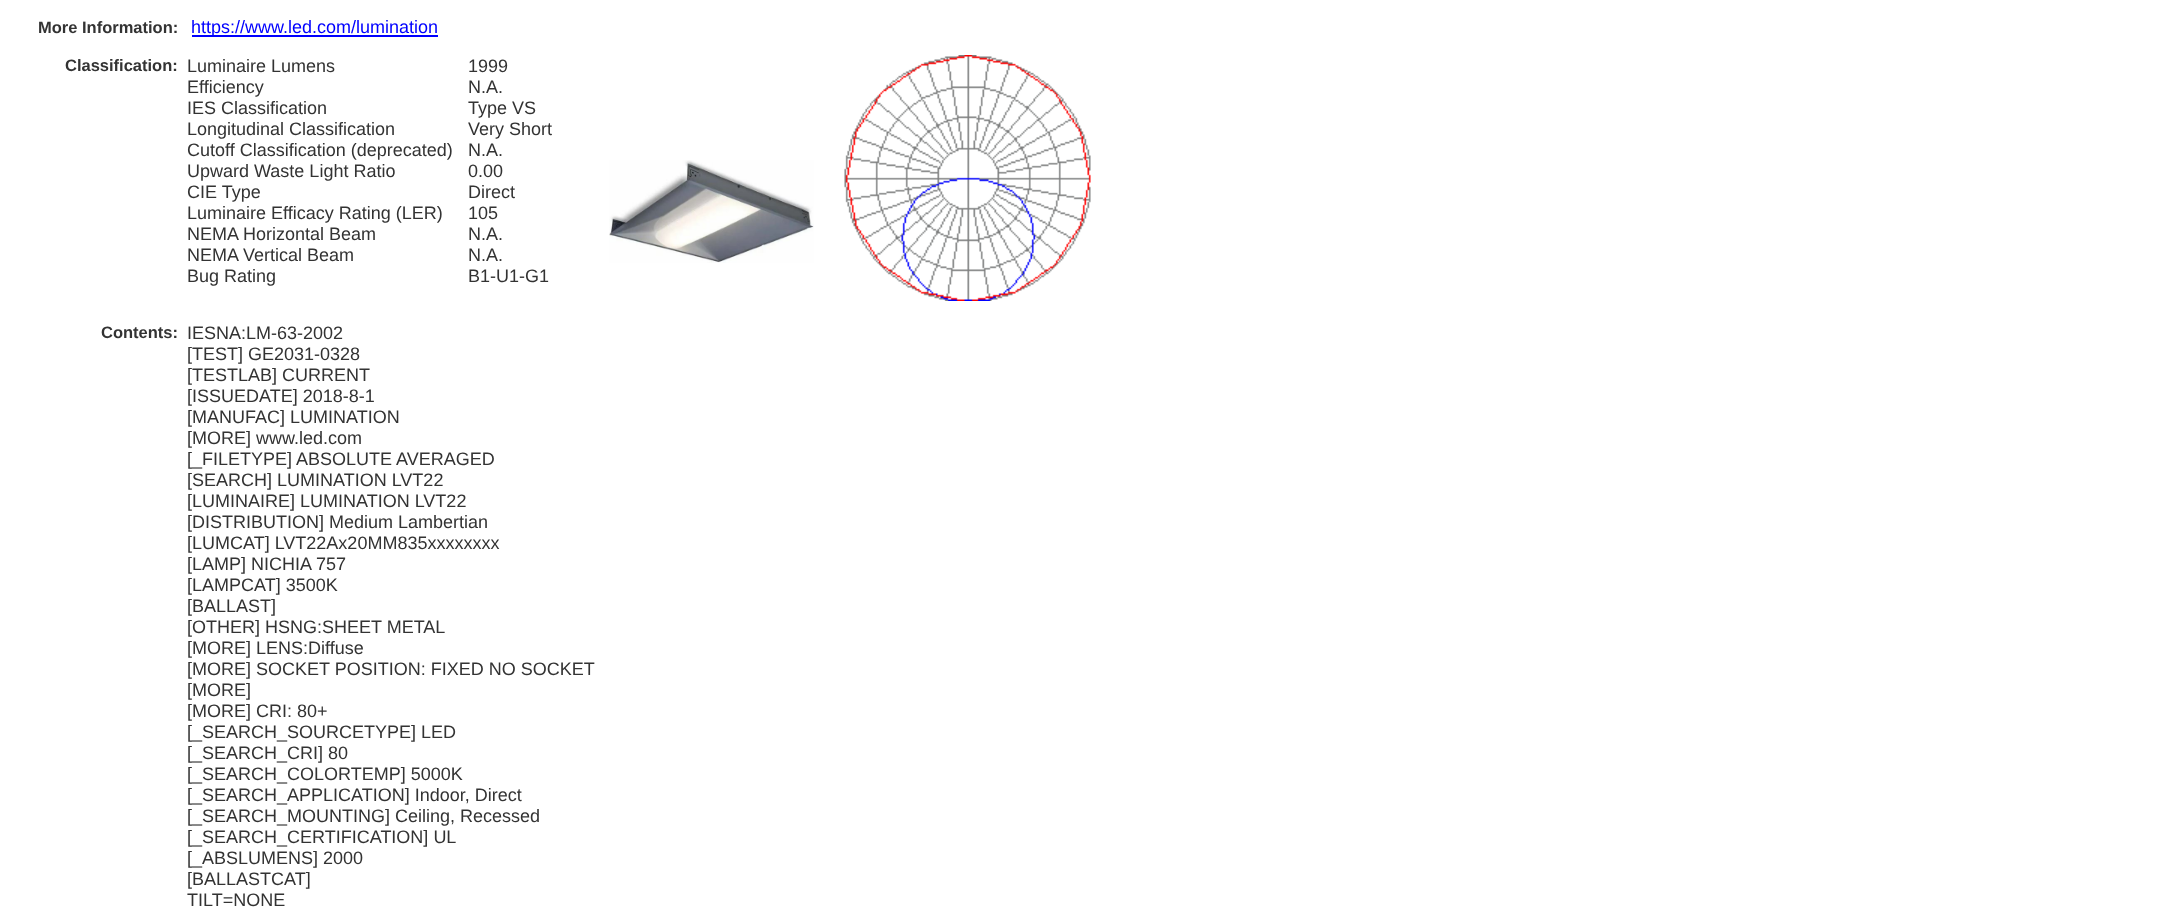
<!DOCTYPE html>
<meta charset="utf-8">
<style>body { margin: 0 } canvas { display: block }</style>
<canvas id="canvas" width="2172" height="916"></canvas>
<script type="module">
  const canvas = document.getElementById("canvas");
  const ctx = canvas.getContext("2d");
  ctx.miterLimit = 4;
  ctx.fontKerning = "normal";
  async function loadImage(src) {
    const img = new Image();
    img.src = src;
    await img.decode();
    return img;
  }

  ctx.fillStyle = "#ffffff";
  ctx.fillRect(0, 0, 2172, 916);
  ctx.font = "bold 16.5px Liberation Sans";
  ctx.fillStyle = "#333333";
  ctx.fillText("More Information:", 38, 33);
  ctx.fillStyle = "#0000ff";
  ctx.fillRect(192, 35, 246, 2);
  ctx.font = "18px Liberation Sans";
  ctx.fillText("https://www.led.com/lumination", 191, 33);
  ctx.font = "bold 16.5px Liberation Sans";
  ctx.fillStyle = "#333333";
  ctx.fillText("Classification:", 65, 71);
  ctx.font = "18px Liberation Sans";
  ctx.fillText("Luminaire Lumens", 187, 72);
  ctx.fillText("1999", 468, 72);
  ctx.fillText("Efficiency", 187, 93);
  ctx.fillText("N.A.", 468, 93);
  ctx.fillText("IES Classification", 187, 114);
  ctx.fillText("Type VS", 468, 114);
  ctx.fillText("Longitudinal Classification", 187, 135);
  ctx.fillText("Very Short", 468, 135);
  ctx.fillText("Cutoff Classification (deprecated)", 187, 156);
  ctx.fillText("N.A.", 468, 156);
  ctx.fillText("Upward Waste Light Ratio", 187, 177);
  ctx.fillText("0.00", 468, 177);
  ctx.fillText("CIE Type", 187, 198);
  ctx.fillText("Direct", 468, 198);
  ctx.fillText("Luminaire Efficacy Rating (LER)", 187, 219);
  ctx.fillText("105", 468, 219);
  ctx.fillText("NEMA Horizontal Beam", 187, 240);
  ctx.fillText("N.A.", 468, 240);
  ctx.fillText("NEMA Vertical Beam", 187, 261);
  ctx.fillText("N.A.", 468, 261);
  ctx.fillText("Bug Rating", 187, 282);
  ctx.fillText("B1-U1-G1", 468, 282);
  ctx.drawImage(await loadImage("img1.png"), 609, 160, 205, 103);
  ctx.drawImage(await loadImage("img2.png"), 844, 55, 247, 246);
  ctx.font = "bold 16.5px Liberation Sans";
  ctx.fillText("Contents:", 101, 338);
  ctx.font = "18px Liberation Sans";
  ctx.fillText("IESNA:LM-63-2002", 187, 339);
  ctx.fillText("[TEST] GE2031-0328", 187, 360);
  ctx.fillText("[TESTLAB] CURRENT", 187, 381);
  ctx.fillText("[ISSUEDATE] 2018-8-1", 187, 402);
  ctx.fillText("[MANUFAC] LUMINATION", 187, 423);
  ctx.fillText("[MORE] www.led.com", 187, 444);
  ctx.fillText("[_FILETYPE] ABSOLUTE AVERAGED", 187, 465);
  ctx.fillText("[SEARCH] LUMINATION LVT22", 187, 486);
  ctx.fillText("[LUMINAIRE] LUMINATION LVT22", 187, 507);
  ctx.fillText("[DISTRIBUTION] Medium Lambertian", 187, 528);
  ctx.fillText("[LUMCAT] LVT22Ax20MM835xxxxxxxx", 187, 549);
  ctx.fillText("[LAMP] NICHIA 757", 187, 570);
  ctx.fillText("[LAMPCAT] 3500K", 187, 591);
  ctx.fillText("[BALLAST]", 187, 612);
  ctx.fillText("[OTHER] HSNG:SHEET METAL", 187, 633);
  ctx.fillText("[MORE] LENS:Diffuse", 187, 654);
  ctx.fillText("[MORE] SOCKET POSITION: FIXED NO SOCKET", 187, 675);
  ctx.fillText("[MORE]", 187, 696);
  ctx.fillText("[MORE] CRI: 80+", 187, 717);
  ctx.fillText("[_SEARCH_SOURCETYPE] LED", 187, 738);
  ctx.fillText("[_SEARCH_CRI] 80", 187, 759);
  ctx.fillText("[_SEARCH_COLORTEMP] 5000K", 187, 780);
  ctx.fillText("[_SEARCH_APPLICATION] Indoor, Direct", 187, 801);
  ctx.fillText("[_SEARCH_MOUNTING] Ceiling, Recessed", 187, 822);
  ctx.fillText("[_SEARCH_CERTIFICATION] UL", 187, 843);
  ctx.fillText("[_ABSLUMENS] 2000", 187, 864);
  ctx.fillText("[BALLASTCAT]", 187, 885);
  ctx.fillText("TILT=NONE", 187, 906);
</script>
